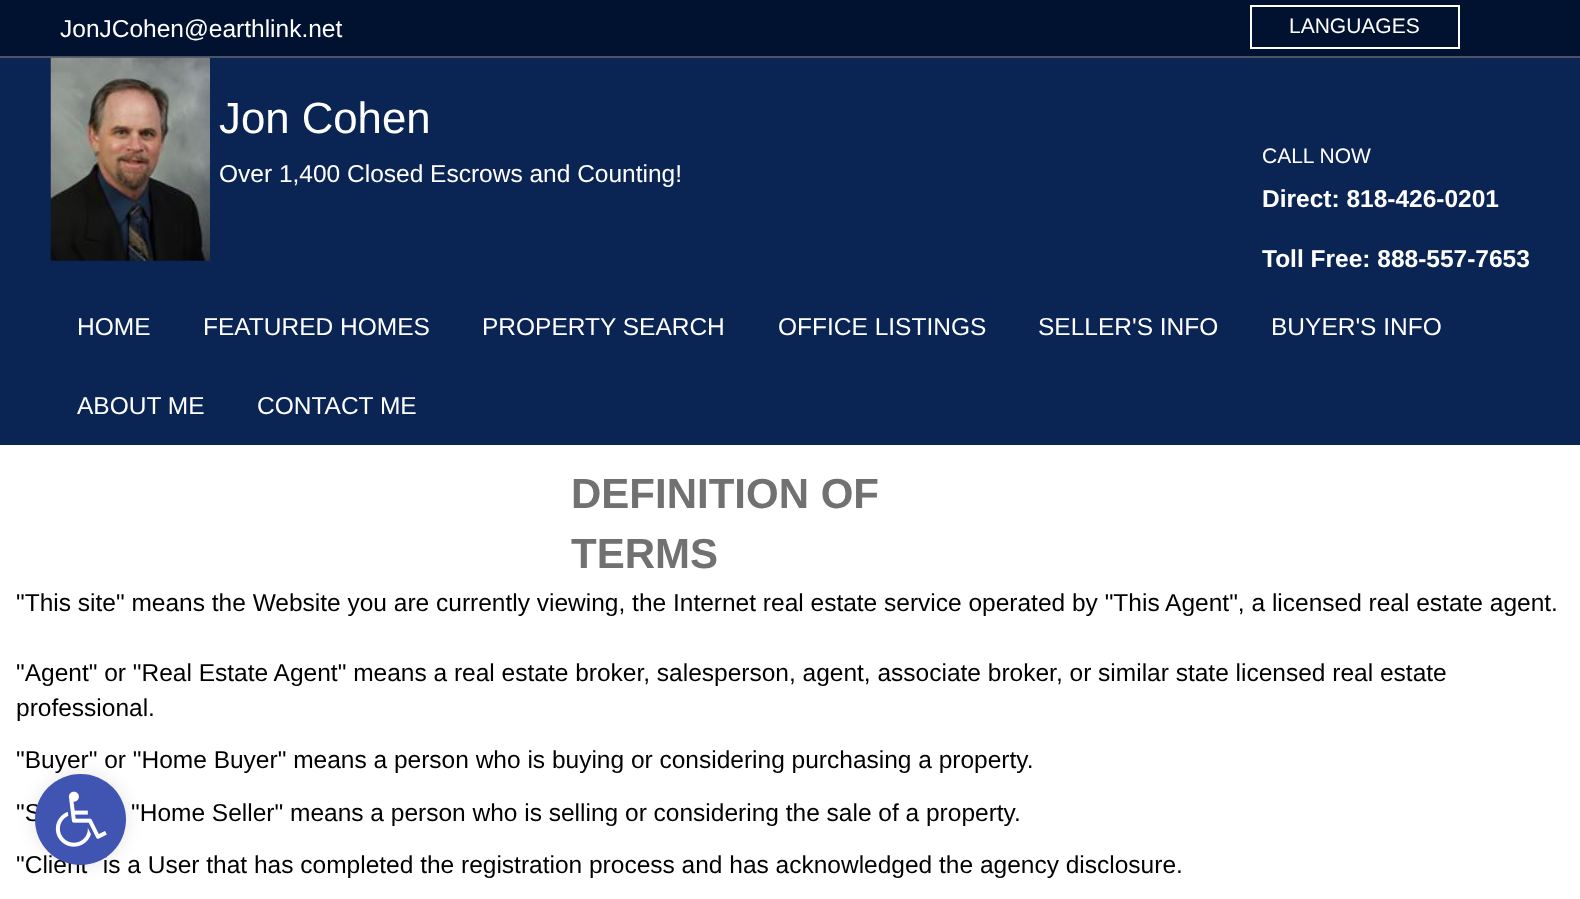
<!DOCTYPE html>
<meta charset="utf-8">
<style>body { margin: 0 } canvas { display: block }</style>
<canvas id="canvas" width="1580" height="899"></canvas>
<script type="module">
  const canvas = document.getElementById("canvas");
  const ctx = canvas.getContext("2d");
  ctx.miterLimit = 4;
  ctx.fontKerning = "normal";
  async function loadImage(src) {
    const img = new Image();
    img.src = src;
    await img.decode();
    return img;
  }

  ctx.fillStyle = "#ffffff";
  ctx.fillRect(0, 0, 1580, 899);
  ctx.fillStyle = "#011231";
  ctx.fillRect(0, 0, 1580, 56);
  ctx.fillStyle = "#4c5363";
  ctx.fillRect(0, 56, 1580, 2);
  ctx.font = "24.5px Liberation Sans";
  ctx.fillStyle = "#ffffff";
  ctx.fillText("JonJCohen@earthlink.net", 60, 37);
  ctx.strokeStyle = "#ffffff";
  ctx.lineWidth = 2;
  ctx.strokeRect(1251, 6, 208, 42);
  ctx.font = "21px Liberation Sans";
  ctx.fillText("LANGUAGES", 1289, 33);
  ctx.fillStyle = "#0a2454";
  ctx.fillRect(0, 58, 1580, 387);
  ctx.drawImage(await loadImage("img1.png"), 50, 57, 160, 204);
  ctx.font = "43.75px Liberation Sans";
  ctx.fillStyle = "#ffffff";
  ctx.fillText("Jon Cohen", 219, 133);
  ctx.font = "24.5px Liberation Sans";
  ctx.fillText("Over 1,400 Closed Escrows and Counting!", 219, 182);
  ctx.font = "21px Liberation Sans";
  ctx.fillText("CALL NOW", 1262, 163);
  ctx.font = "bold 24.5px Liberation Sans";
  ctx.fillText("Direct: 818-426-0201", 1262, 207);
  ctx.fillText("Toll Free: 888-557-7653", 1262, 267);
  ctx.font = "24.5px Liberation Sans";
  ctx.fillText("HOME", 77, 335);
  ctx.fillText("FEATURED HOMES", 203, 335);
  ctx.fillText("PROPERTY SEARCH", 482, 335);
  ctx.fillText("OFFICE LISTINGS", 778, 335);
  ctx.fillText("SELLER'S INFO", 1038, 335);
  ctx.fillText("BUYER'S INFO", 1271, 335);
  ctx.fillText("ABOUT ME", 77, 414);
  ctx.fillText("CONTACT ME", 257, 414);
  ctx.font = "bold 42px Liberation Sans";
  ctx.fillStyle = "#717171";
  ctx.fillText("DEFINITION OF", 571, 508);
  ctx.fillText("TERMS", 571, 568);
  ctx.font = "24.5px Liberation Sans";
  ctx.fillStyle = "#000000";
  ctx.fillText("\"This site\" means the Website you are currently viewing, the Internet real estate service operated by \"This Agent\", a licensed real estate agent.", 16, 611);
  ctx.fillText("\"Agent\" or \"Real Estate Agent\" means a real estate broker, salesperson, agent, associate broker, or similar state licensed real estate", 16, 681);
  ctx.fillText("professional.", 16, 716);
  ctx.fillText("\"Buyer\" or \"Home Buyer\" means a person who is buying or considering purchasing a property.", 16, 768);
  ctx.fillText("\"S", 16, 821);
  ctx.fillText("\"Home Seller\" means a person who is selling or considering the sale of a property.", 131, 821);
  ctx.fillText("\"Client\" is a User that has completed the registration process and has acknowledged the agency disclosure.", 16, 873);
  ctx.fillStyle = "rgba(0, 0, 0, 0.1)";
  ctx.filter = "blur(9px)";
  ctx.beginPath();
  ctx.roundRect(35, 774, 91, 91, 45.5);
  ctx.fill();
  ctx.filter = "none";
  ctx.fillStyle = "#4054b2";
  ctx.beginPath();
  ctx.arc(80.5, 819.5, 45.5, 0, Math.PI * 2);
  ctx.fill();
  ctx.drawImage(await loadImage("img2.png"), 55, 791, 52, 56);
</script>
